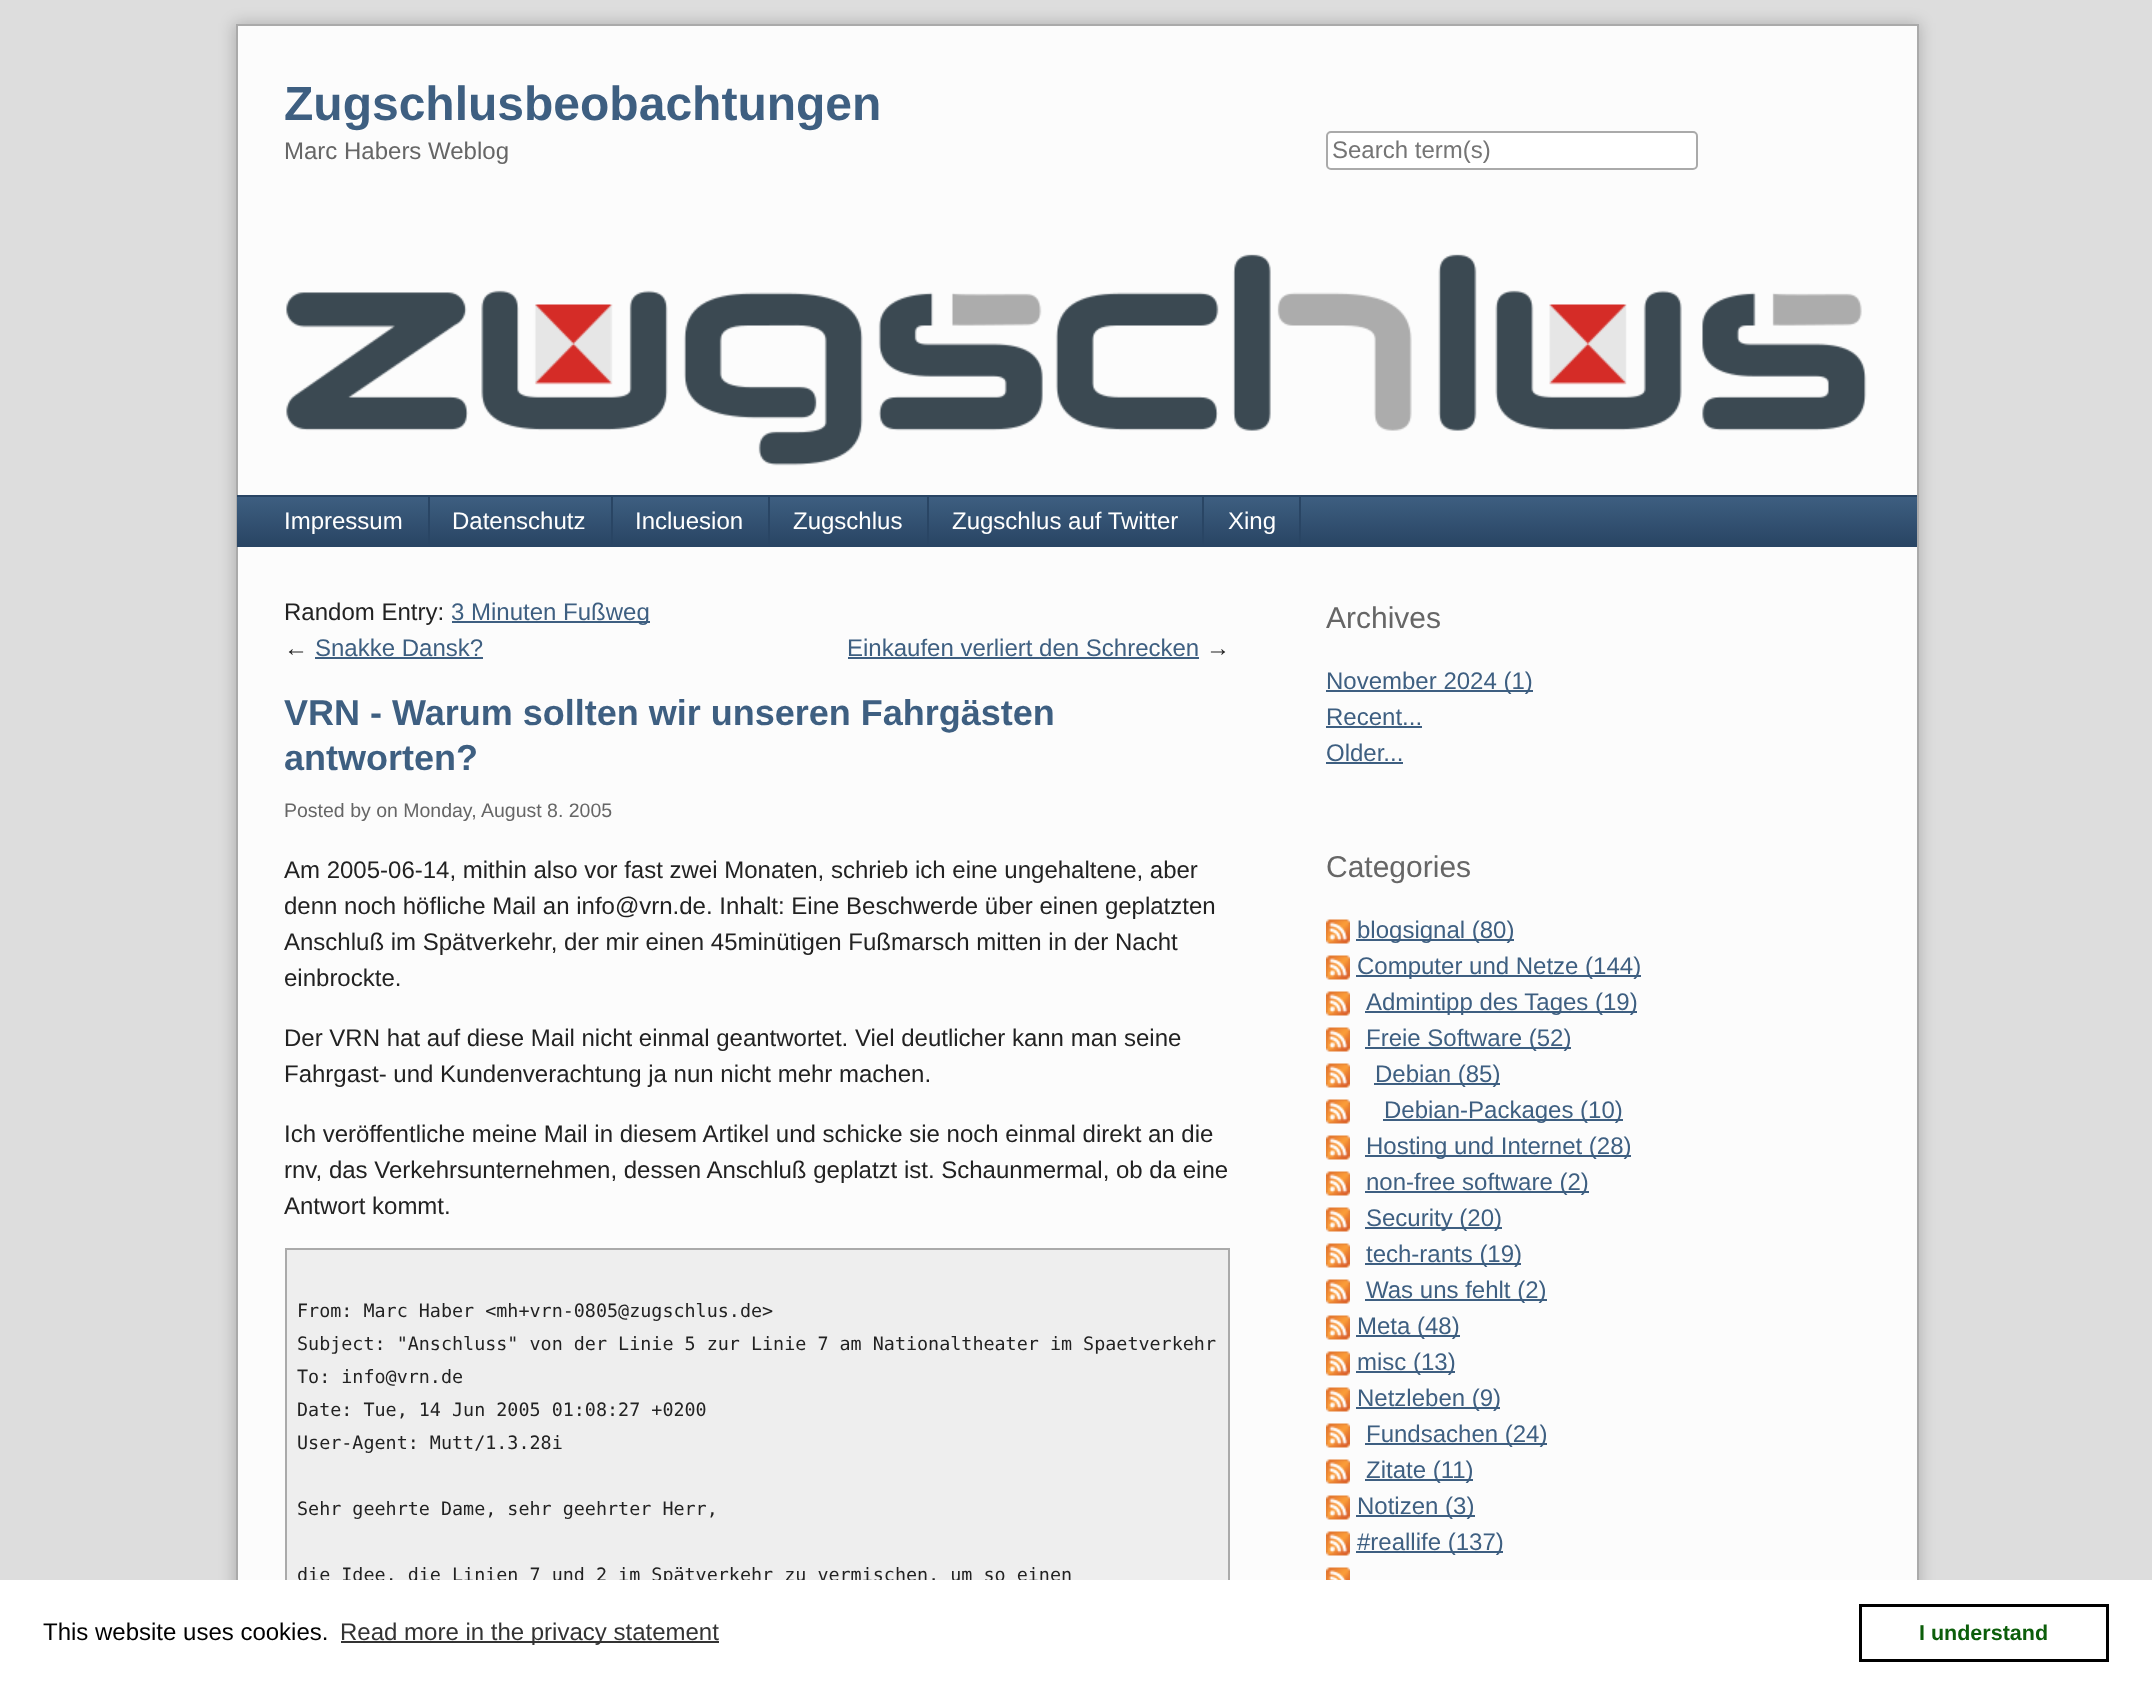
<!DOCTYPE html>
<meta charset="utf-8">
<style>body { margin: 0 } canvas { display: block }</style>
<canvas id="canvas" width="2152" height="1685"></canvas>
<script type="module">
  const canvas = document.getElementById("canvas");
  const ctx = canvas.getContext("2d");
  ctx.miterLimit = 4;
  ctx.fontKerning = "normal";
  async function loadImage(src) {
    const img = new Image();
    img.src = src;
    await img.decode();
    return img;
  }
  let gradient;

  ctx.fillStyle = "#dddddd";
  ctx.fillRect(0, 0, 2152, 1685);
  ctx.fillStyle = "rgba(0, 0, 0, 0.2)";
  ctx.filter = "blur(7.5px)";
  ctx.beginPath();
  ctx.rect(234, 23, 1686, 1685);
  ctx.fill();
  ctx.filter = "none";
  ctx.fillStyle = "#fcfcfc";
  ctx.fillRect(238, 26, 1679, 1554);
  ctx.strokeStyle = "#aaaaaa";
  ctx.lineWidth = 2;
  ctx.strokeRect(237, 25, 1681, 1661);
  ctx.font = "bold 48px Liberation Sans";
  ctx.fillStyle = "#3e5f81";
  ctx.fillText("Zugschlusbeobachtungen", 284, 120);
  ctx.font = "24px Liberation Sans";
  ctx.fillStyle = "#666666";
  ctx.fillText("Marc Habers Weblog", 284, 159);
  ctx.fillStyle = "#ffffff";
  ctx.beginPath();
  ctx.roundRect(1327, 132, 370, 37, 4);
  ctx.fill();
  ctx.stroke();
  ctx.fillStyle = "#757575";
  ctx.fillText("Search term(s)", 1332, 158);
  ctx.drawImage(await loadImage("img1.png"), 286, 254, 1581, 212);
  ctx.fillStyle = "#294564";
  ctx.fillRect(237, 495, 1680, 2);
  gradient = ctx.createLinearGradient(1077, 496, 1077, 545);
  gradient.addColorStop(0, "#3e5f81");
  gradient.addColorStop(1, "#294564");
  ctx.fillStyle = gradient;
  ctx.fillRect(237, 497, 1680, 48);
  ctx.fillStyle = "#294564";
  ctx.fillRect(237, 545, 1680, 2);
  ctx.fillRect(428, 497, 2, 48);
  ctx.fillStyle = "#ffffff";
  ctx.fillText("Impressum", 284, 529);
  ctx.fillStyle = "#294564";
  ctx.fillRect(611, 497, 2, 48);
  ctx.fillStyle = "#ffffff";
  ctx.fillText("Datenschutz", 452, 529);
  ctx.fillStyle = "#294564";
  ctx.fillRect(768, 497, 2, 48);
  ctx.fillStyle = "#ffffff";
  ctx.fillText("Incluesion", 635, 529);
  ctx.fillStyle = "#294564";
  ctx.fillRect(927, 497, 2, 48);
  ctx.fillStyle = "#ffffff";
  ctx.fillText("Zugschlus", 793, 529);
  ctx.fillStyle = "#294564";
  ctx.fillRect(1202, 497, 2, 48);
  ctx.fillStyle = "#ffffff";
  ctx.fillText("Zugschlus auf Twitter", 952, 529);
  ctx.fillStyle = "#294564";
  ctx.fillRect(1299, 497, 2, 48);
  ctx.fillStyle = "#ffffff";
  ctx.fillText("Xing", 1228, 529);
  ctx.fillStyle = "#222222";
  ctx.fillText("Random Entry:", 284, 620);
  ctx.fillStyle = "#3e5f81";
  ctx.fillRect(452, 621, 198, 2);
  ctx.fillText("3 Minuten Fußweg", 451, 620);
  ctx.fillStyle = "#222222";
  ctx.fillText("←", 284, 656);
  ctx.fillStyle = "#3e5f81";
  ctx.fillText("Snakke Dansk?", 315, 656);
  ctx.fillRect(315, 657, 168, 2);
  ctx.fillText("Einkaufen verliert den Schrecken", 847, 656);
  ctx.fillRect(848, 657, 351, 2);
  ctx.fillStyle = "#222222";
  ctx.fillText("→", 1206, 656);
  ctx.font = "bold 36px Liberation Sans";
  ctx.fillStyle = "#3e5f81";
  ctx.fillText("VRN - Warum sollten wir unseren Fahrgästen", 284, 725);
  ctx.fillText("antworten?", 284, 770);
  ctx.font = "19.5px Liberation Sans";
  ctx.fillStyle = "#666666";
  ctx.fillText("Posted by on Monday, August 8. 2005", 284, 817);
  ctx.font = "24px Liberation Sans";
  ctx.fillStyle = "#222222";
  ctx.fillText("Am 2005-06-14, mithin also vor fast zwei Monaten, schrieb ich eine ungehaltene, aber", 284, 878);
  ctx.fillText("denn noch höfliche Mail an info@vrn.de. Inhalt: Eine Beschwerde über einen geplatzten", 284, 914);
  ctx.fillText("Anschluß im Spätverkehr, der mir einen 45minütigen Fußmarsch mitten in der Nacht", 284, 950);
  ctx.fillText("einbrockte.", 284, 986);
  ctx.fillText("Der VRN hat auf diese Mail nicht einmal geantwortet. Viel deutlicher kann man seine", 284, 1046);
  ctx.fillText("Fahrgast- und Kundenverachtung ja nun nicht mehr machen.", 284, 1082);
  ctx.fillText("Ich veröffentliche meine Mail in diesem Artikel und schicke sie noch einmal direkt an die", 284, 1142);
  ctx.fillText("rnv, das Verkehrsunternehmen, dessen Anschluß geplatzt ist. Schaunmermal, ob da eine", 284, 1178);
  ctx.fillText("Antwort kommt.", 284, 1214);
  ctx.fillStyle = "#eeeeee";
  ctx.fillRect(287, 1250, 941, 330);
  ctx.strokeRect(286, 1249, 943, 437);
  ctx.font = "18.4px DejaVu Sans Mono";
  ctx.fillStyle = "#222222";
  ctx.fillText("From: Marc Haber <mh+vrn-0805@zugschlus.de>", 297, 1317);
  ctx.fillText("Subject: \"Anschluss\" von der Linie 5 zur Linie 7 am Nationaltheater im Spaetverkehr", 297, 1350);
  ctx.fillText("To: info@vrn.de", 297, 1383);
  ctx.fillText("Date: Tue, 14 Jun 2005 01:08:27 +0200", 297, 1416);
  ctx.fillText("User-Agent: Mutt/1.3.28i", 297, 1449);
  ctx.fillText("Sehr geehrte Dame, sehr geehrter Herr,", 297, 1515);
  ctx.fillText("die Idee, die Linien 7 und 2 im Spätverkehr zu vermischen, um so einen", 297, 1581);
  ctx.font = "30px Liberation Sans";
  ctx.fillStyle = "#666666";
  ctx.fillText("Archives", 1326, 628);
  ctx.fillStyle = "#3e5f81";
  ctx.fillRect(1326, 690, 207, 2);
  ctx.font = "24px Liberation Sans";
  ctx.fillText("November 2024 (1)", 1326, 689);
  ctx.fillText("Recent...", 1326, 725);
  ctx.fillRect(1326, 726, 96, 2);
  ctx.fillText("Older...", 1326, 761);
  ctx.fillRect(1326, 762, 77, 2);
  ctx.font = "30px Liberation Sans";
  ctx.fillStyle = "#666666";
  ctx.fillText("Categories", 1326, 877);
  ctx.drawImage(await loadImage("img2.png"), 1326, 919, 24, 25);
  ctx.fillStyle = "#3e5f81";
  ctx.fillRect(1356, 939, 158, 2);
  ctx.font = "24px Liberation Sans";
  ctx.fillText("blogsignal (80)", 1357, 938);
  ctx.drawImage(await loadImage("img2.png"), 1326, 955, 24, 25);
  ctx.fillRect(1356, 975, 285, 2);
  ctx.fillText("Computer und Netze (144)", 1357, 974);
  ctx.drawImage(await loadImage("img2.png"), 1326, 991, 24, 25);
  ctx.fillRect(1365, 1011, 272, 2);
  ctx.fillText("Admintipp des Tages (19)", 1366, 1010);
  ctx.drawImage(await loadImage("img2.png"), 1326, 1027, 24, 25);
  ctx.fillRect(1365, 1047, 206, 2);
  ctx.fillText("Freie Software (52)", 1366, 1046);
  ctx.drawImage(await loadImage("img2.png"), 1326, 1063, 24, 25);
  ctx.fillRect(1374, 1083, 126, 2);
  ctx.fillText("Debian (85)", 1375, 1082);
  ctx.drawImage(await loadImage("img2.png"), 1326, 1099, 24, 25);
  ctx.fillRect(1383, 1119, 240, 2);
  ctx.fillText("Debian-Packages (10)", 1384, 1118);
  ctx.drawImage(await loadImage("img2.png"), 1326, 1135, 24, 25);
  ctx.fillRect(1365, 1155, 266, 2);
  ctx.fillText("Hosting und Internet (28)", 1366, 1154);
  ctx.drawImage(await loadImage("img2.png"), 1326, 1171, 24, 25);
  ctx.fillRect(1365, 1191, 224, 2);
  ctx.fillText("non-free software (2)", 1366, 1190);
  ctx.drawImage(await loadImage("img2.png"), 1326, 1207, 24, 25);
  ctx.fillRect(1365, 1227, 137, 2);
  ctx.fillText("Security (20)", 1366, 1226);
  ctx.drawImage(await loadImage("img2.png"), 1326, 1243, 24, 25);
  ctx.fillRect(1365, 1263, 156, 2);
  ctx.fillText("tech-rants (19)", 1366, 1262);
  ctx.drawImage(await loadImage("img2.png"), 1326, 1279, 24, 25);
  ctx.fillRect(1365, 1299, 182, 2);
  ctx.fillText("Was uns fehlt (2)", 1366, 1298);
  ctx.drawImage(await loadImage("img2.png"), 1326, 1315, 24, 25);
  ctx.fillRect(1356, 1335, 104, 2);
  ctx.fillText("Meta (48)", 1357, 1334);
  ctx.drawImage(await loadImage("img2.png"), 1326, 1351, 24, 25);
  ctx.fillRect(1356, 1371, 99, 2);
  ctx.fillText("misc (13)", 1357, 1370);
  ctx.drawImage(await loadImage("img2.png"), 1326, 1387, 24, 25);
  ctx.fillRect(1356, 1407, 144, 2);
  ctx.fillText("Netzleben (9)", 1357, 1406);
  ctx.drawImage(await loadImage("img2.png"), 1326, 1423, 24, 25);
  ctx.fillRect(1365, 1443, 182, 2);
  ctx.fillText("Fundsachen (24)", 1366, 1442);
  ctx.drawImage(await loadImage("img2.png"), 1326, 1459, 24, 25);
  ctx.fillRect(1365, 1479, 108, 2);
  ctx.fillText("Zitate (11)", 1366, 1478);
  ctx.drawImage(await loadImage("img2.png"), 1326, 1495, 24, 25);
  ctx.fillRect(1356, 1515, 119, 2);
  ctx.fillText("Notizen (3)", 1357, 1514);
  ctx.drawImage(await loadImage("img2.png"), 1326, 1531, 24, 25);
  ctx.fillRect(1356, 1551, 147, 2);
  ctx.fillText("#reallife (137)", 1357, 1550);
  ctx.drawImage(await loadImage("img3.png"), 1326, 1567, 24, 13);
  ctx.fillStyle = "#ffffff";
  ctx.fillRect(0, 1580, 2152, 105);
  ctx.fillStyle = "#000000";
  ctx.fillText("This website uses cookies.", 43, 1640);
  ctx.fillStyle = "#333333";
  ctx.fillRect(341, 1641, 378, 2);
  ctx.fillText("Read more in the privacy statement", 340, 1640);
  ctx.strokeStyle = "#000000";
  ctx.lineWidth = 3;
  ctx.strokeRect(1860.5, 1605.5, 247, 55);
  ctx.font = "bold 21.5px Liberation Sans";
  ctx.fillStyle = "#0c5e0a";
  ctx.fillText("I understand", 1919, 1640);
</script>
